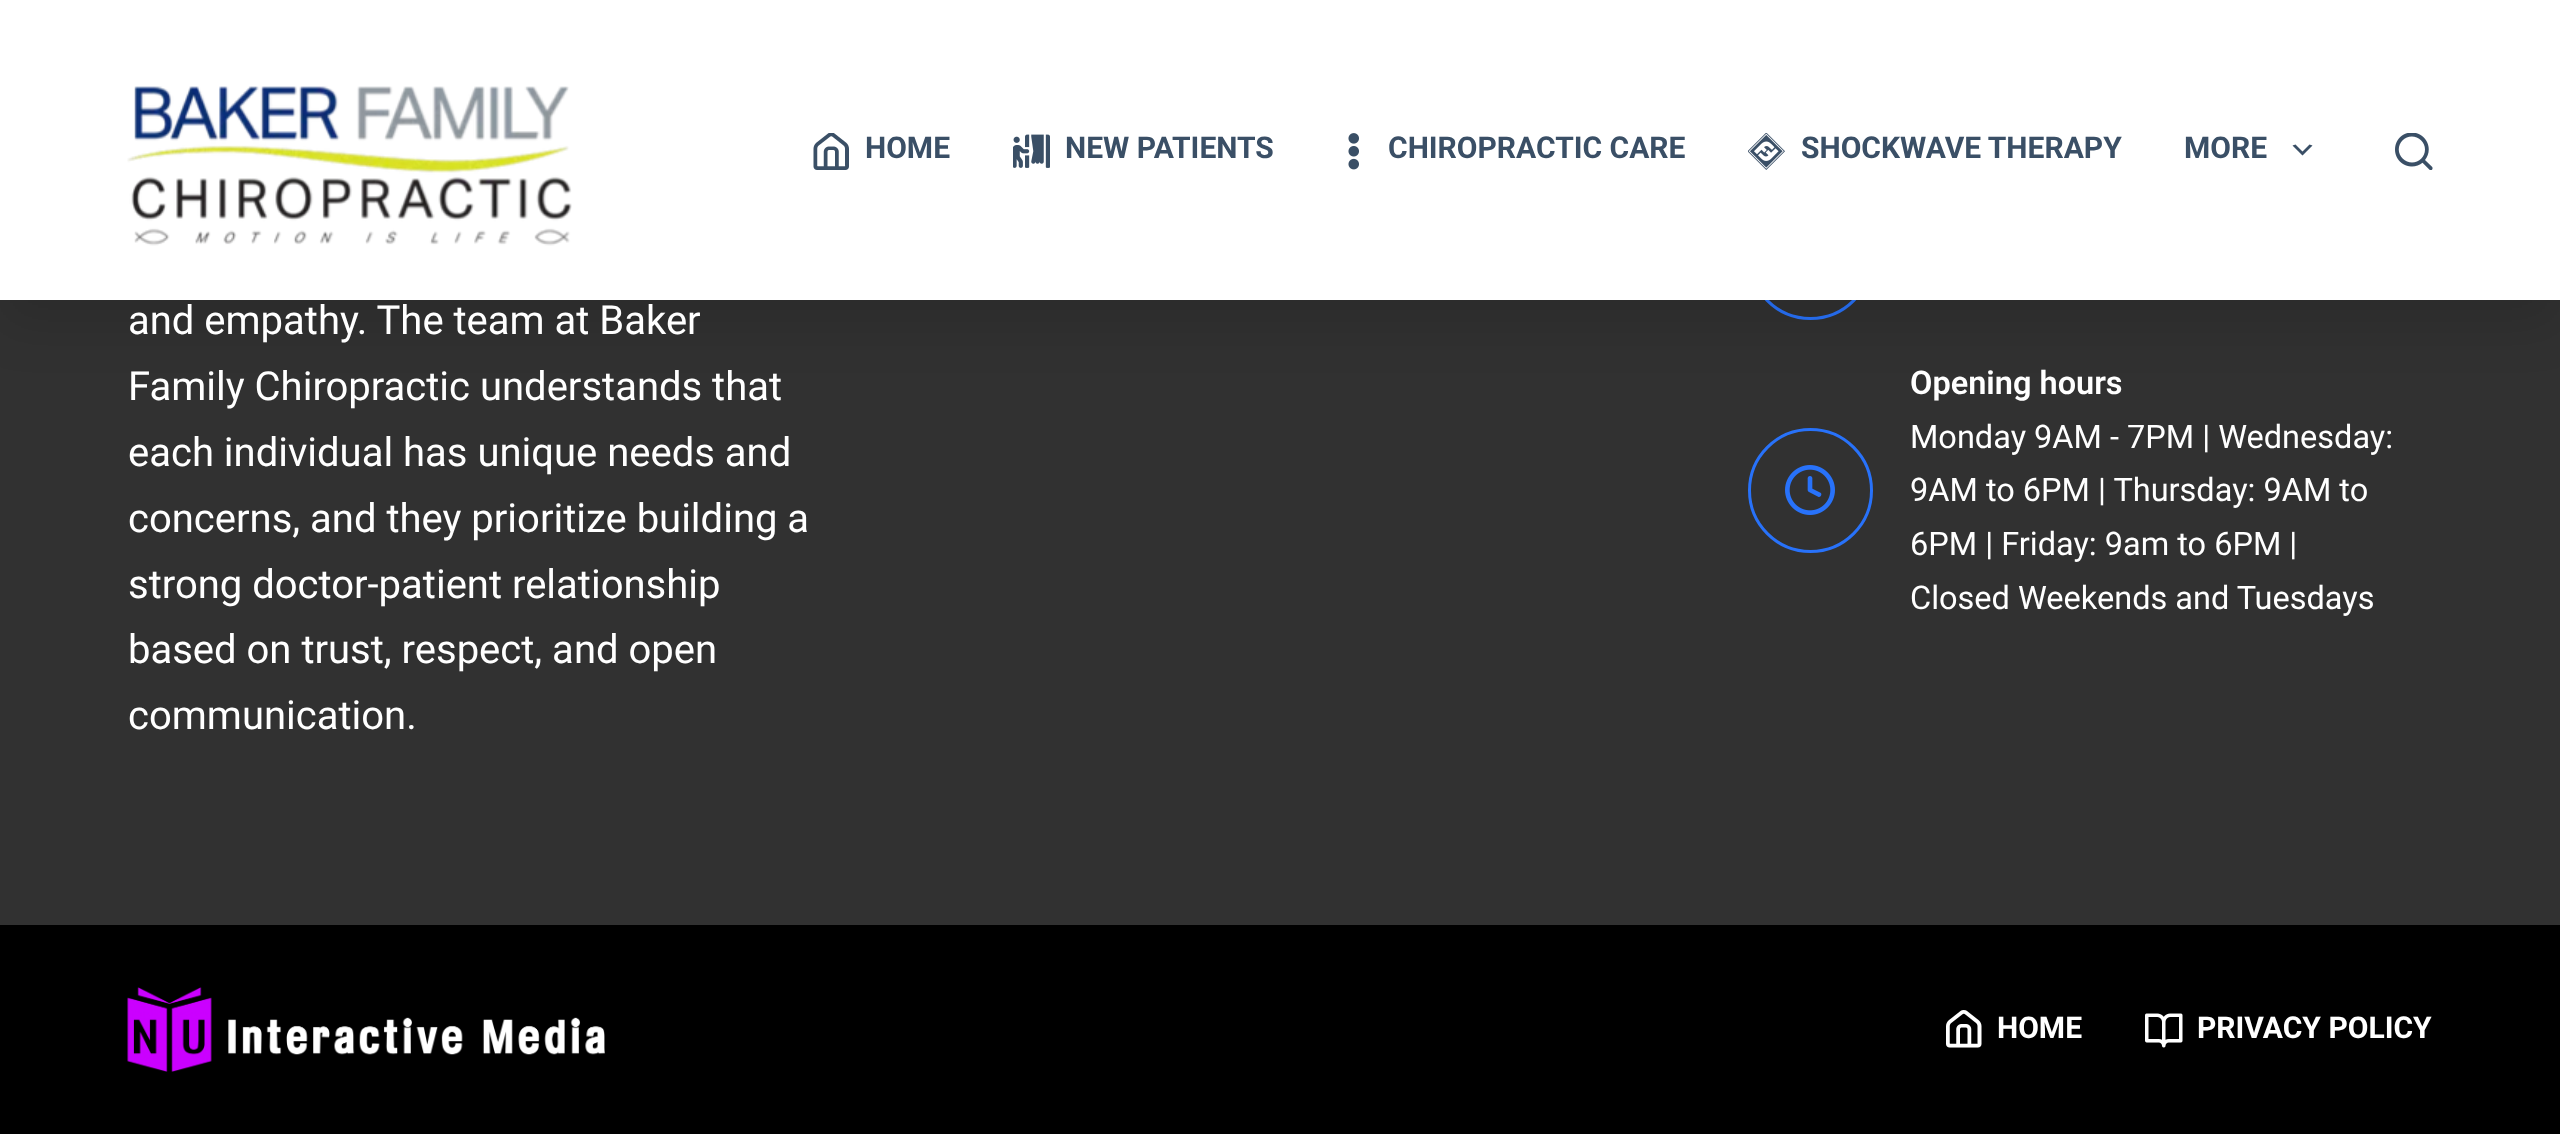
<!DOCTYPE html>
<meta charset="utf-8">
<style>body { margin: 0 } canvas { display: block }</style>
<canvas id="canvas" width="2560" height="1134"></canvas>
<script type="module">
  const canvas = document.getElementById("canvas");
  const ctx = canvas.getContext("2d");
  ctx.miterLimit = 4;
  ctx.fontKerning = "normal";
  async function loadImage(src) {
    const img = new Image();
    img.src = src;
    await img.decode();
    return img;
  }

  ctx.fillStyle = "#313131";
  ctx.fillRect(0, 0, 2560, 1134);
  ctx.beginPath();
  ctx.arc(1810.5, 257.5, 61, 0, Math.PI * 2);
  ctx.strokeStyle = "#2872fa";
  ctx.lineWidth = 3;
  ctx.stroke();
  ctx.fillStyle = "rgba(0, 0, 0, 0.11)";
  ctx.filter = "blur(25px)";
  ctx.beginPath();
  ctx.rect(0, 25, 2560, 300);
  ctx.fill();
  ctx.filter = "none";
  ctx.fillStyle = "#ffffff";
  ctx.fillRect(0, 0, 2560, 300);
  ctx.drawImage(await loadImage("img1.png"), 127, 86, 445, 160);
  ctx.drawImage(await loadImage("img2.png"), 813, 133, 36, 37);
  ctx.font = "bold 30px Roboto";
  ctx.fillStyle = "#3a4f66";
  ctx.fillText("HOME", 865, 158);
  ctx.drawImage(await loadImage("img3.png"), 1013, 134, 37, 34);
  ctx.fillText("NEW PATIENTS", 1065, 158);
  ctx.drawImage(await loadImage("img4.png"), 1348, 133, 11, 37);
  ctx.fillText("CHIROPRACTIC CARE", 1388, 158);
  ctx.drawImage(await loadImage("img5.png"), 1748, 133, 37, 37);
  ctx.fillText("SHOCKWAVE THERAPY", 1801, 158);
  ctx.fillText("MORE", 2184, 158);
  ctx.beginPath();
  ctx.moveTo(2295.5, 144.5);
  ctx.lineTo(2302.5, 151.5);
  ctx.lineTo(2309.5, 144.5);
  ctx.lineTo(2312.5, 145.5);
  ctx.lineTo(2302.5, 155.5);
  ctx.lineTo(2292.5, 145.5);
  ctx.closePath();
  ctx.fill();
  ctx.drawImage(await loadImage("img6.png"), 2395, 133, 38, 37);
  ctx.font = "40px Roboto";
  ctx.fillStyle = "#ffffff";
  ctx.fillText("and empathy. The team at Baker", 128, 334);
  ctx.fillText("Family Chiropractic understands that", 128, 400);
  ctx.fillText("each individual has unique needs and", 128, 466);
  ctx.fillText("concerns, and they prioritize building a", 128, 532);
  ctx.fillText("strong doctor-patient relationship", 128, 598);
  ctx.fillText("based on trust, respect, and open", 128, 663);
  ctx.fillText("communication.", 128, 729);
  ctx.beginPath();
  ctx.arc(1810.5, 490.5, 61, 0, Math.PI * 2);
  ctx.stroke();
  ctx.drawImage(await loadImage("img7.png"), 1785, 465, 50, 50);
  ctx.font = "600 32.5px Roboto";
  ctx.fillText("Opening hours", 1910, 394);
  ctx.font = "32.5px Roboto";
  ctx.fillText("Monday 9AM - 7PM | Wednesday:", 1910, 448);
  ctx.fillText("9AM to 6PM | Thursday: 9AM to", 1910, 501);
  ctx.fillText("6PM | Friday: 9am to 6PM |", 1910, 555);
  ctx.fillText("Closed Weekends and Tuesdays", 1910, 609);
  ctx.fillStyle = "#000000";
  ctx.fillRect(0, 925, 2560, 209);
  ctx.drawImage(await loadImage("img8.png"), 127, 987, 478, 85);
  ctx.drawImage(await loadImage("img9.png"), 1946, 1010, 36, 38);
  ctx.font = "bold 30px Roboto";
  ctx.fillStyle = "#ffffff";
  ctx.fillText("HOME", 1997, 1038);
  ctx.drawImage(await loadImage("img10.png"), 2145, 1013, 38, 35);
  ctx.fillText("PRIVACY POLICY", 2197, 1038);
</script>
